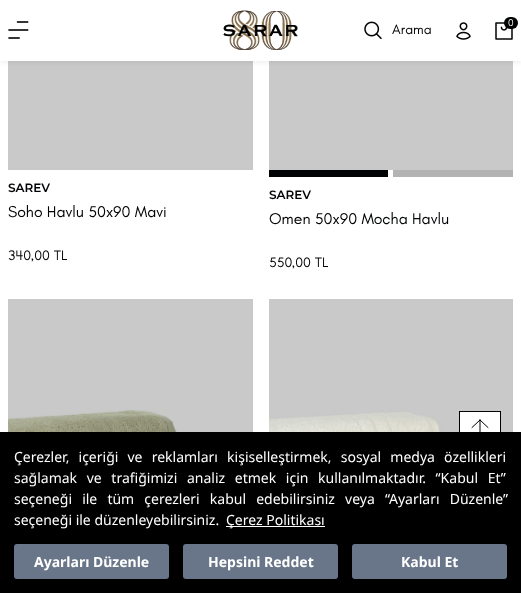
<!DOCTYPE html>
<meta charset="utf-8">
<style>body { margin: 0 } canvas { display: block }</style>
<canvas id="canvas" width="521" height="593"></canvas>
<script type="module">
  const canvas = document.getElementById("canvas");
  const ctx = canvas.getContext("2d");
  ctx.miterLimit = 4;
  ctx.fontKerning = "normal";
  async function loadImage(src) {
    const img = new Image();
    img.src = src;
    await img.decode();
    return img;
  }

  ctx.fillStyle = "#ffffff";
  ctx.fillRect(0, 0, 521, 593);
  ctx.drawImage(await loadImage("img6.png"), 8, 61, 245, 109);
  ctx.drawImage(await loadImage("img7.png"), 269, 61, 244, 109);
  ctx.fillStyle = "rgba(0, 0, 0, 0.06)";
  ctx.filter = "blur(2px)";
  ctx.beginPath();
  ctx.rect(0, 2, 521, 61);
  ctx.fill();
  ctx.filter = "none";
  ctx.fillStyle = "#ffffff";
  ctx.fillRect(0, 0, 521, 61);
  ctx.drawImage(await loadImage("img1.png"), 8, 21, 21, 18);
  ctx.drawImage(await loadImage("img2.png"), 223, 10, 75, 40);
  ctx.drawImage(await loadImage("img3.png"), 364, 21, 18, 18);
  ctx.font = "14px Teachers";
  ctx.fillStyle = "#010203";
  ctx.fillText("Arama", 392, 34);
  ctx.drawImage(await loadImage("img4.png"), 456, 22, 15, 18);
  ctx.drawImage(await loadImage("img5.png"), 495, 22, 18, 18);
  ctx.beginPath();
  ctx.roundRect(504, 17, 14, 12, 6);
  ctx.fill();
  ctx.font = "10px Teachers";
  ctx.fillStyle = "#ffffff";
  ctx.fillText("0", 508, 26);
  ctx.drawImage(await loadImage("img9.png"), 269, 299, 244, 133);
  ctx.fillRect(460, 412, 40, 20);
  ctx.strokeStyle = "#010203";
  ctx.strokeRect(459.5, 411.5, 41, 41);
  ctx.beginPath();
  ctx.moveTo(472, 427.5);
  ctx.lineTo(480, 420);
  ctx.moveTo(480, 420);
  ctx.lineTo(488, 427.5);
  ctx.moveTo(480, 420);
  ctx.lineTo(480, 436);
  ctx.strokeStyle = "#000000";
  ctx.lineCap = "round";
  ctx.stroke();
  ctx.font = "600 12px Montserrat";
  ctx.fillStyle = "#010203";
  ctx.fillText("SAREV", 8, 192);
  ctx.font = "16px Teachers";
  ctx.fillText("Soho Havlu 50x90 Mavi", 8, 217);
  ctx.font = "14px Teachers";
  ctx.fillText("340,00 TL", 8, 260);
  ctx.fillRect(269, 170, 119, 7);
  ctx.fillStyle = "#b3b3b3";
  ctx.fillRect(393, 170, 120, 7);
  ctx.font = "600 12px Montserrat";
  ctx.fillStyle = "#010203";
  ctx.fillText("SAREV", 269, 199);
  ctx.font = "16px Teachers";
  ctx.fillText("Omen 50x90 Mocha Havlu", 269, 224);
  ctx.font = "14px Teachers";
  ctx.fillText("550,00 TL", 269, 267);
  ctx.drawImage(await loadImage("img8.png"), 8, 299, 245, 133);
  ctx.fillStyle = "#000000";
  ctx.fillRect(0, 432, 521, 161);
  ctx.wordSpacing = "5.5px";
  ctx.font = "14px Noto Sans";
  ctx.fillStyle = "#ffffff";
  ctx.fillText("Çerezler, içeriği ve reklamları kişiselleştirmek, sosyal medya özellikleri", 14, 462);
  ctx.wordSpacing = "6px";
  ctx.fillText("sağlamak ve trafiğimizi analiz etmek için kullanılmaktadır. “Kabul Et”", 14, 483);
  ctx.wordSpacing = "6.5px";
  ctx.fillText("seçeneği ile tüm çerezleri kabul edebilirsiniz veya “Ayarları Düzenle”", 14, 504);
  ctx.wordSpacing = "0px";
  ctx.fillText("seçeneği ile düzenleyebilirsiniz.", 14, 525);
  ctx.fillRect(226, 526, 99, 1);
  ctx.fillText("Çerez Politikası", 226, 525);
  ctx.fillStyle = "#697689";
  ctx.beginPath();
  ctx.roundRect(14, 544, 155, 35, 3);
  ctx.fill();
  ctx.font = "bold 14px Noto Sans";
  ctx.fillStyle = "#ffffff";
  ctx.fillText("Ayarları Düzenle", 34, 567);
  ctx.fillStyle = "#697689";
  ctx.beginPath();
  ctx.roundRect(183, 544, 155, 35, 3);
  ctx.fill();
  ctx.fillStyle = "#ffffff";
  ctx.fillText("Hepsini Reddet", 208, 567);
  ctx.fillStyle = "#697689";
  ctx.beginPath();
  ctx.roundRect(352, 544, 155, 35, 3);
  ctx.fill();
  ctx.fillStyle = "#ffffff";
  ctx.fillText("Kabul Et", 401, 567);
</script>
